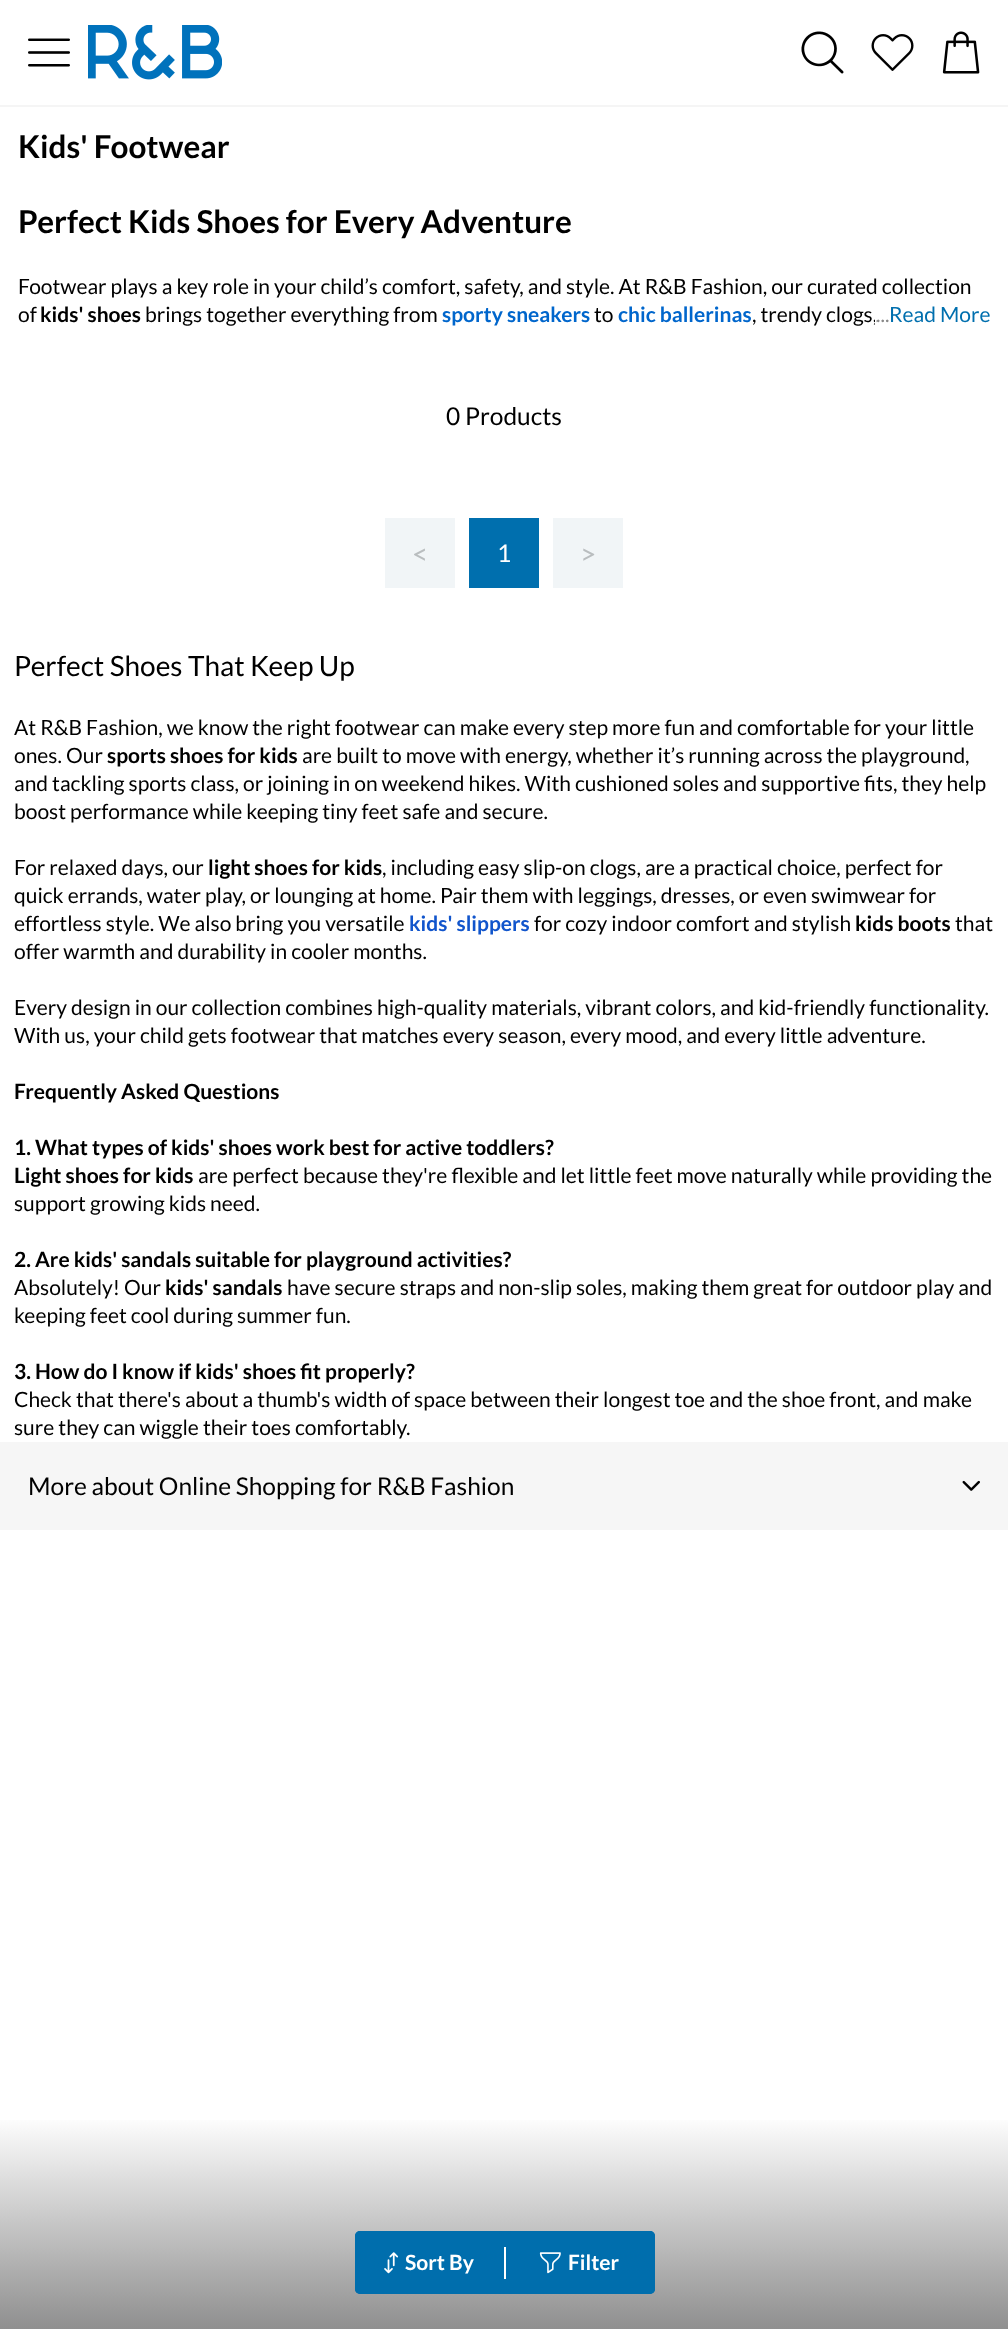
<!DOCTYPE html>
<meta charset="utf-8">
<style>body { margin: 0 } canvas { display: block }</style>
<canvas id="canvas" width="1008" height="2329"></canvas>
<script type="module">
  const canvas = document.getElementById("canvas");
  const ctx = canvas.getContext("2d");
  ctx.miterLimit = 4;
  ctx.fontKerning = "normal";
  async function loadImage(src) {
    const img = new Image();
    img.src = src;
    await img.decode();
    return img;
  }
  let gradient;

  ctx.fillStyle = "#ffffff";
  ctx.fillRect(0, 0, 1008, 2329);
  ctx.fillStyle = "#f5f5f5";
  ctx.fillRect(0, 105, 1008, 2);
  ctx.drawImage(await loadImage("img1.png"), 28, 38, 42, 29);
  ctx.drawImage(await loadImage("img2.png"), 88, 25, 134, 55);
  ctx.drawImage(await loadImage("img3.png"), 801, 31, 43, 43);
  ctx.drawImage(await loadImage("img4.png"), 871, 34, 43, 37);
  ctx.drawImage(await loadImage("img5.png"), 942, 31, 38, 43);
  ctx.font = "bold 31.5px Lato";
  ctx.fillStyle = "#000000";
  ctx.fillText("Kids' Footwear", 18, 158);
  ctx.fillText("Perfect Kids Shoes for Every Adventure", 18, 233);
  ctx.font = "21px Lato";
  ctx.fillText("Footwear plays a key role in your child’s comfort, safety, and style. At R&B Fashion, our curated collection", 18, 294);
  ctx.fillText("of", 18, 322);
  ctx.font = "bold 21px Lato";
  ctx.fillText("kids' shoes", 40, 322);
  ctx.font = "21px Lato";
  ctx.fillText("brings together everything from", 145, 322);
  ctx.font = "bold 21px Lato";
  ctx.fillStyle = "#0066cc";
  ctx.fillText("sporty sneakers", 442, 322);
  ctx.font = "21px Lato";
  ctx.fillStyle = "#000000";
  ctx.fillText("to", 594, 322);
  ctx.font = "bold 21px Lato";
  ctx.fillStyle = "#0066cc";
  ctx.fillText("chic ballerinas", 618, 322);
  ctx.font = "21px Lato";
  ctx.fillStyle = "#000000";
  ctx.fillText(", trendy clogs,", 752, 322);
  ctx.fillStyle = "#ffffff";
  ctx.fillRect(875, 319, 1, 5);
  ctx.fillStyle = "#898989";
  ctx.fillText("...", 876, 322);
  ctx.fillStyle = "#006fae";
  ctx.fillText("Read More", 889, 322);
  ctx.font = "24.5px Lato";
  ctx.fillStyle = "#000000";
  ctx.fillText("0 Products", 446, 425);
  gradient = ctx.createLinearGradient(504, 2111, 504, 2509);
  gradient.addColorStop(0.01, "#ffffff");
  gradient.addColorStop(0.88, "#4a4a4a");
  gradient.addColorStop(1, "#ffffff");
  ctx.fillStyle = gradient;
  ctx.fillRect(0, 2120, 1008, 209);
  ctx.fillStyle = "#006ead";
  ctx.beginPath();
  ctx.roundRect(355, 2231, 300, 63, 5);
  ctx.fill();
  ctx.beginPath();
  ctx.roundRect(356, 2232, 147, 61, 4);
  ctx.fill();
  ctx.strokeStyle = "#006ead";
  ctx.lineWidth = 2;
  ctx.stroke();
  ctx.drawImage(await loadImage("img6.png"), 384, 2252, 15, 22);
  ctx.font = "bold 21px Lato";
  ctx.fillStyle = "#ffffff";
  ctx.fillText("Sort By", 405, 2270);
  ctx.fillRect(504, 2247, 2, 32);
  ctx.fillStyle = "#006ead";
  ctx.beginPath();
  ctx.roundRect(507, 2232, 147, 61, 4);
  ctx.fill();
  ctx.stroke();
  ctx.drawImage(await loadImage("img7.png"), 539, 2252, 22, 22);
  ctx.fillStyle = "#ffffff";
  ctx.fillText("Filter", 568, 2270);
  ctx.fillStyle = "#f1f5f7";
  ctx.fillRect(385, 518, 70, 70);
  ctx.font = "28px Lato";
  ctx.fillStyle = "#b9bdbf";
  ctx.fillText("<", 412, 564);
  ctx.fillStyle = "#006fae";
  ctx.fillRect(469, 518, 70, 70);
  ctx.font = "24.5px Lato";
  ctx.fillStyle = "#ffffff";
  ctx.fillText("1", 497, 562);
  ctx.fillStyle = "#f1f5f7";
  ctx.fillRect(553, 518, 70, 70);
  ctx.font = "28px Lato";
  ctx.fillStyle = "#b9bdbf";
  ctx.fillText(">", 580, 564);
  ctx.fillStyle = "#000000";
  ctx.fillText("Perfect Shoes That Keep Up", 14, 676);
  ctx.font = "21px Lato";
  ctx.fillText("At R&B Fashion, we know the right footwear can make every step more fun and comfortable for your little", 14, 735);
  ctx.fillText("ones. Our", 14, 763);
  ctx.font = "bold 21px Lato";
  ctx.fillText("sports shoes for kids", 107, 763);
  ctx.font = "21px Lato";
  ctx.fillText("are built to move with energy, whether it’s running across the playground,", 302, 763);
  ctx.fillText("and tackling sports class, or joining in on weekend hikes. With cushioned soles and supportive fits, they help", 14, 791);
  ctx.fillText("boost performance while keeping tiny feet safe and secure.", 14, 819);
  ctx.fillText("For relaxed days, our", 14, 875);
  ctx.font = "bold 21px Lato";
  ctx.fillText("light shoes for kids", 208, 875);
  ctx.font = "21px Lato";
  ctx.fillText(", including easy slip-on clogs, are a practical choice, perfect for", 382, 875);
  ctx.fillText("quick errands, water play, or lounging at home. Pair them with leggings, dresses, or even swimwear for", 14, 903);
  ctx.fillText("effortless style. We also bring you versatile", 14, 931);
  ctx.font = "bold 21px Lato";
  ctx.fillStyle = "#1155cc";
  ctx.fillText("kids' slippers", 409, 931);
  ctx.font = "21px Lato";
  ctx.fillStyle = "#000000";
  ctx.fillText("for cozy indoor comfort and stylish", 534, 931);
  ctx.font = "bold 21px Lato";
  ctx.fillText("kids boots", 855, 931);
  ctx.font = "21px Lato";
  ctx.fillText("that", 955, 931);
  ctx.fillText("offer warmth and durability in cooler months.", 14, 959);
  ctx.fillText("Every design in our collection combines high-quality materials, vibrant colors, and kid-friendly functionality.", 14, 1015);
  ctx.fillText("With us, your child gets footwear that matches every season, every mood, and every little adventure.", 14, 1043);
  ctx.font = "bold 21px Lato";
  ctx.fillText("Frequently Asked Questions", 14, 1099);
  ctx.fillText("1. What types of kids' shoes work best for active toddlers?", 14, 1155);
  ctx.fillText("Light shoes for kids", 14, 1183);
  ctx.font = "21px Lato";
  ctx.fillText("are perfect because they're flexible and let little feet move naturally while providing the", 198, 1183);
  ctx.fillText("support growing kids need.", 14, 1211);
  ctx.font = "bold 21px Lato";
  ctx.fillText("2. Are kids' sandals suitable for playground activities?", 14, 1267);
  ctx.font = "21px Lato";
  ctx.fillText("Absolutely! Our", 14, 1295);
  ctx.font = "bold 21px Lato";
  ctx.fillText("kids' sandals", 165, 1295);
  ctx.font = "21px Lato";
  ctx.fillText("have secure straps and non-slip soles, making them great for outdoor play and", 287, 1295);
  ctx.fillText("keeping feet cool during summer fun.", 14, 1323);
  ctx.font = "bold 21px Lato";
  ctx.fillText("3. How do I know if kids' shoes fit properly?", 14, 1379);
  ctx.font = "21px Lato";
  ctx.fillText("Check that there's about a thumb's width of space between their longest toe and the shoe front, and make", 14, 1407);
  ctx.fillText("sure they can wiggle their toes comfortably.", 14, 1435);
  ctx.fillStyle = "#f6f6f6";
  ctx.fillRect(0, 1442, 1008, 88);
  ctx.font = "24.5px Lato";
  ctx.fillStyle = "#000000";
  ctx.fillText("More about Online Shopping for R&B Fashion", 28, 1495);
  ctx.drawImage(await loadImage("img8.png"), 962, 1480, 18, 11);
</script>
